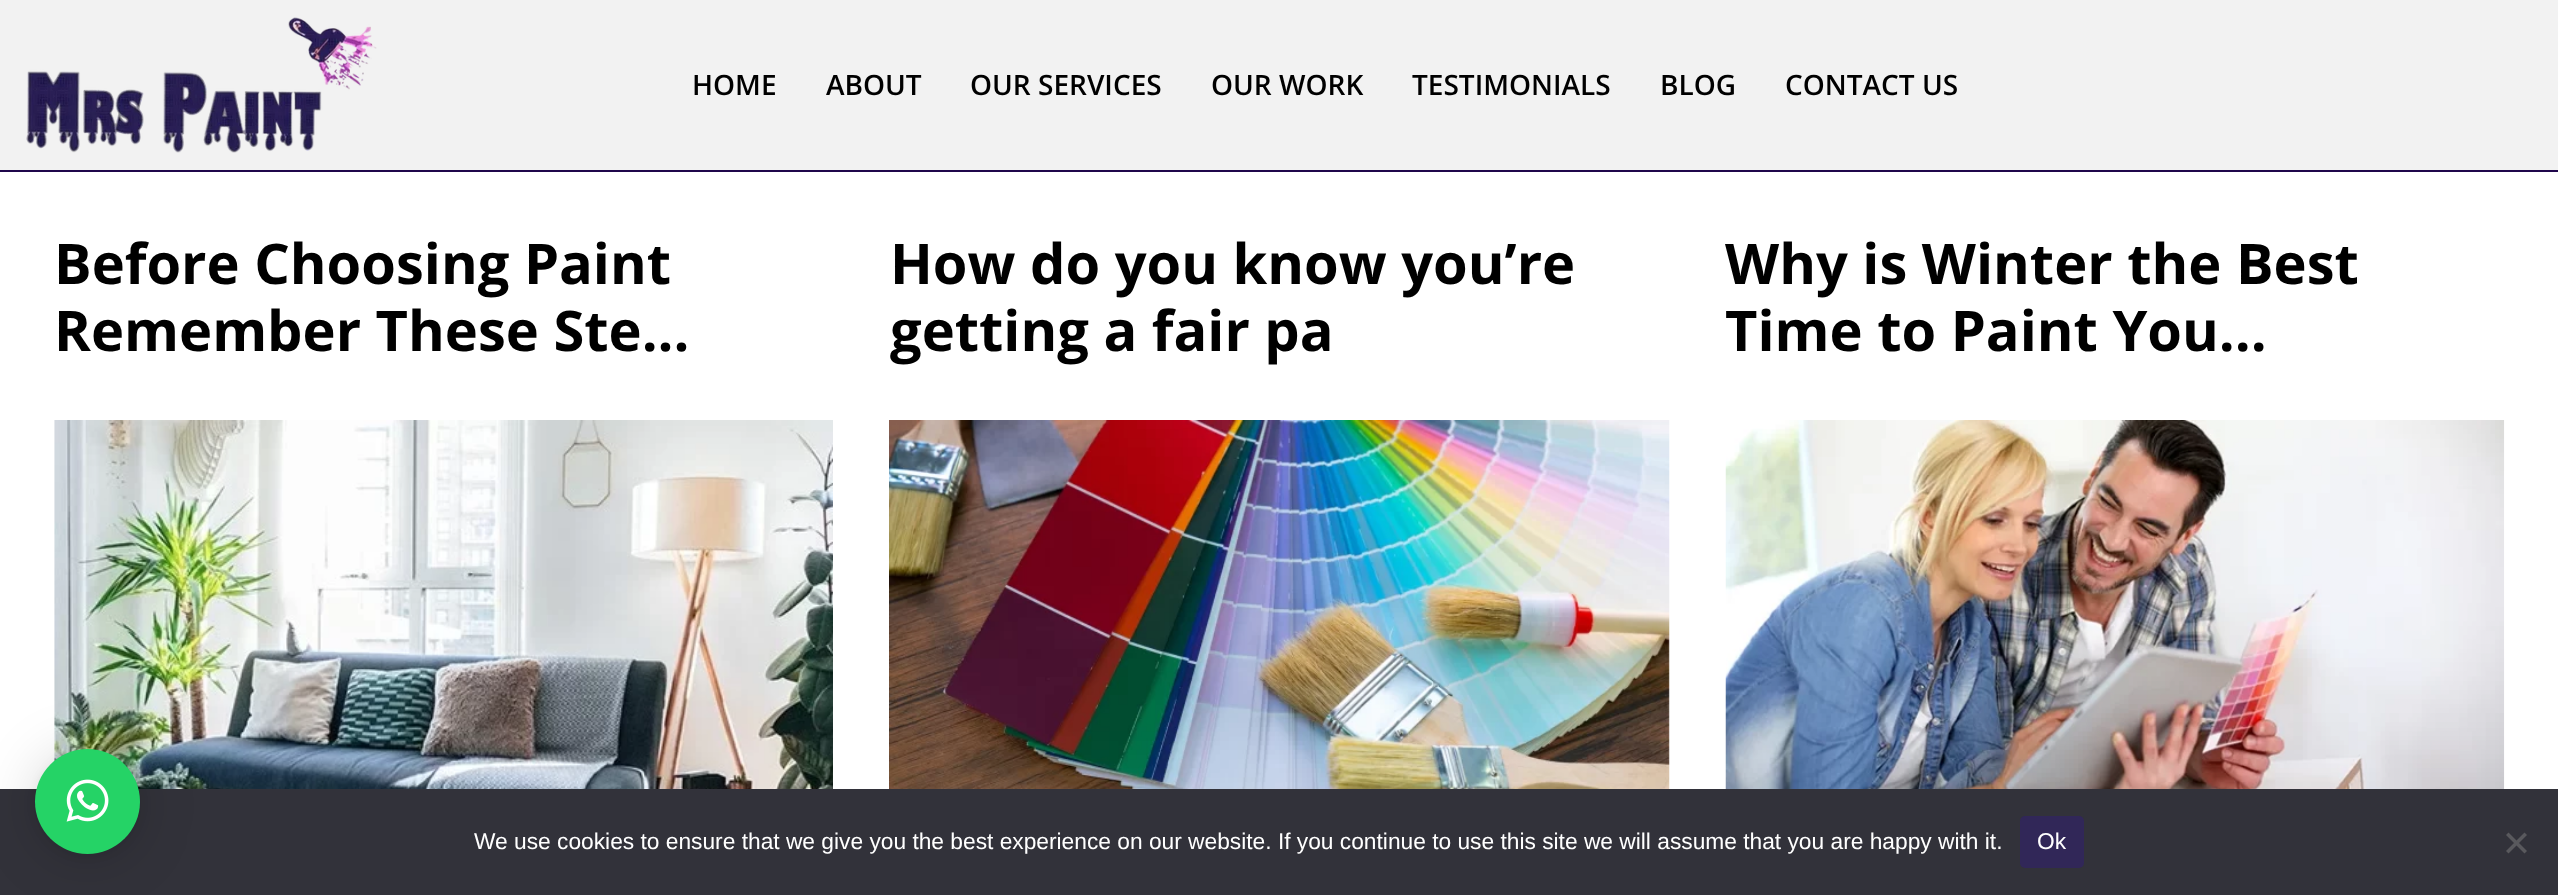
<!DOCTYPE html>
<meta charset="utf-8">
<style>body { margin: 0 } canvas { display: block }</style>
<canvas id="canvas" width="2558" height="895"></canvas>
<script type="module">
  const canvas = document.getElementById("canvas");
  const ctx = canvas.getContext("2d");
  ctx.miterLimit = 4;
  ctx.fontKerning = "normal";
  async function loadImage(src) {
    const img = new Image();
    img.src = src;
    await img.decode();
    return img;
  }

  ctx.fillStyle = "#f2f2f2";
  ctx.fillRect(0, 0, 2558, 895);
  ctx.fillStyle = "#1f064b";
  ctx.fillRect(0, 170, 2558, 2);
  ctx.drawImage(await loadImage("img1.png"), 26, 17, 351, 136);
  ctx.font = "600 28px Open Sans";
  ctx.fillStyle = "#000000";
  ctx.fillText("HOME", 692, 95);
  ctx.fillText("ABOUT", 826, 95);
  ctx.fillText("OUR SERVICES", 970, 95);
  ctx.fillText("OUR WORK", 1211, 95);
  ctx.fillText("TESTIMONIALS", 1412, 95);
  ctx.fillText("BLOG", 1660, 95);
  ctx.fillText("CONTACT US", 1785, 95);
  ctx.fillStyle = "#ffffff";
  ctx.fillRect(0, 172, 2558, 617);
  ctx.font = "bold 56px Open Sans";
  ctx.fillStyle = "#000000";
  ctx.fillText("Before Choosing Paint", 54, 284);
  ctx.fillText("Remember These Ste...", 54, 351);
  ctx.drawImage(await loadImage("img2.png"), 54, 420, 779, 369);
  ctx.fillText("How do you know you’re", 890, 284);
  ctx.fillText("getting a fair pa", 890, 351);
  ctx.drawImage(await loadImage("img3.png"), 889, 420, 781, 369);
  ctx.fillText("Why is Winter the Best", 1725, 284);
  ctx.fillText("Time to Paint You...", 1725, 351);
  ctx.drawImage(await loadImage("img4.png"), 1725, 420, 780, 369);
  ctx.fillStyle = "#32323a";
  ctx.fillRect(0, 789, 2558, 106);
  ctx.fillStyle = "rgba(0, 0, 0, 0.16)";
  ctx.filter = "blur(28px)";
  ctx.beginPath();
  ctx.roundRect(35, 753, 105, 105, 52.5);
  ctx.fill();
  ctx.filter = "none";
  ctx.fillStyle = "rgba(0, 0, 0, 0.06)";
  ctx.filter = "blur(5px)";
  ctx.beginPath();
  ctx.roundRect(35, 751, 105, 105, 52.5);
  ctx.fill();
  ctx.filter = "none";
  ctx.fillStyle = "#25d366";
  ctx.beginPath();
  ctx.arc(87.5, 801.5, 52.5, 0, Math.PI * 2);
  ctx.fill();
  ctx.drawImage(await loadImage("img5.png"), 66, 779, 43, 43);
  ctx.font = "22.75px Liberation Sans";
  ctx.fillStyle = "#ffffff";
  ctx.fillText("We use cookies to ensure that we give you the best experience on our website. If you continue to use this site we will assume that you are happy with it.", 474, 849);
  ctx.fillStyle = "#312758";
  ctx.beginPath();
  ctx.roundRect(2020, 816, 64, 52, 5);
  ctx.fill();
  ctx.fillStyle = "#ffffff";
  ctx.fillText("Ok", 2037, 849);
  ctx.fillStyle = "#59595d";
  ctx.beginPath();
  ctx.moveTo(2524.5, 832.5);
  ctx.lineTo(2527, 835);
  ctx.lineTo(2508.5, 853.5);
  ctx.lineTo(2506, 851);
  ctx.closePath();
  ctx.fill();
  ctx.beginPath();
  ctx.moveTo(2506, 835);
  ctx.lineTo(2508.5, 832.5);
  ctx.lineTo(2527, 851);
  ctx.lineTo(2524.5, 853.5);
  ctx.closePath();
  ctx.fill();
</script>
